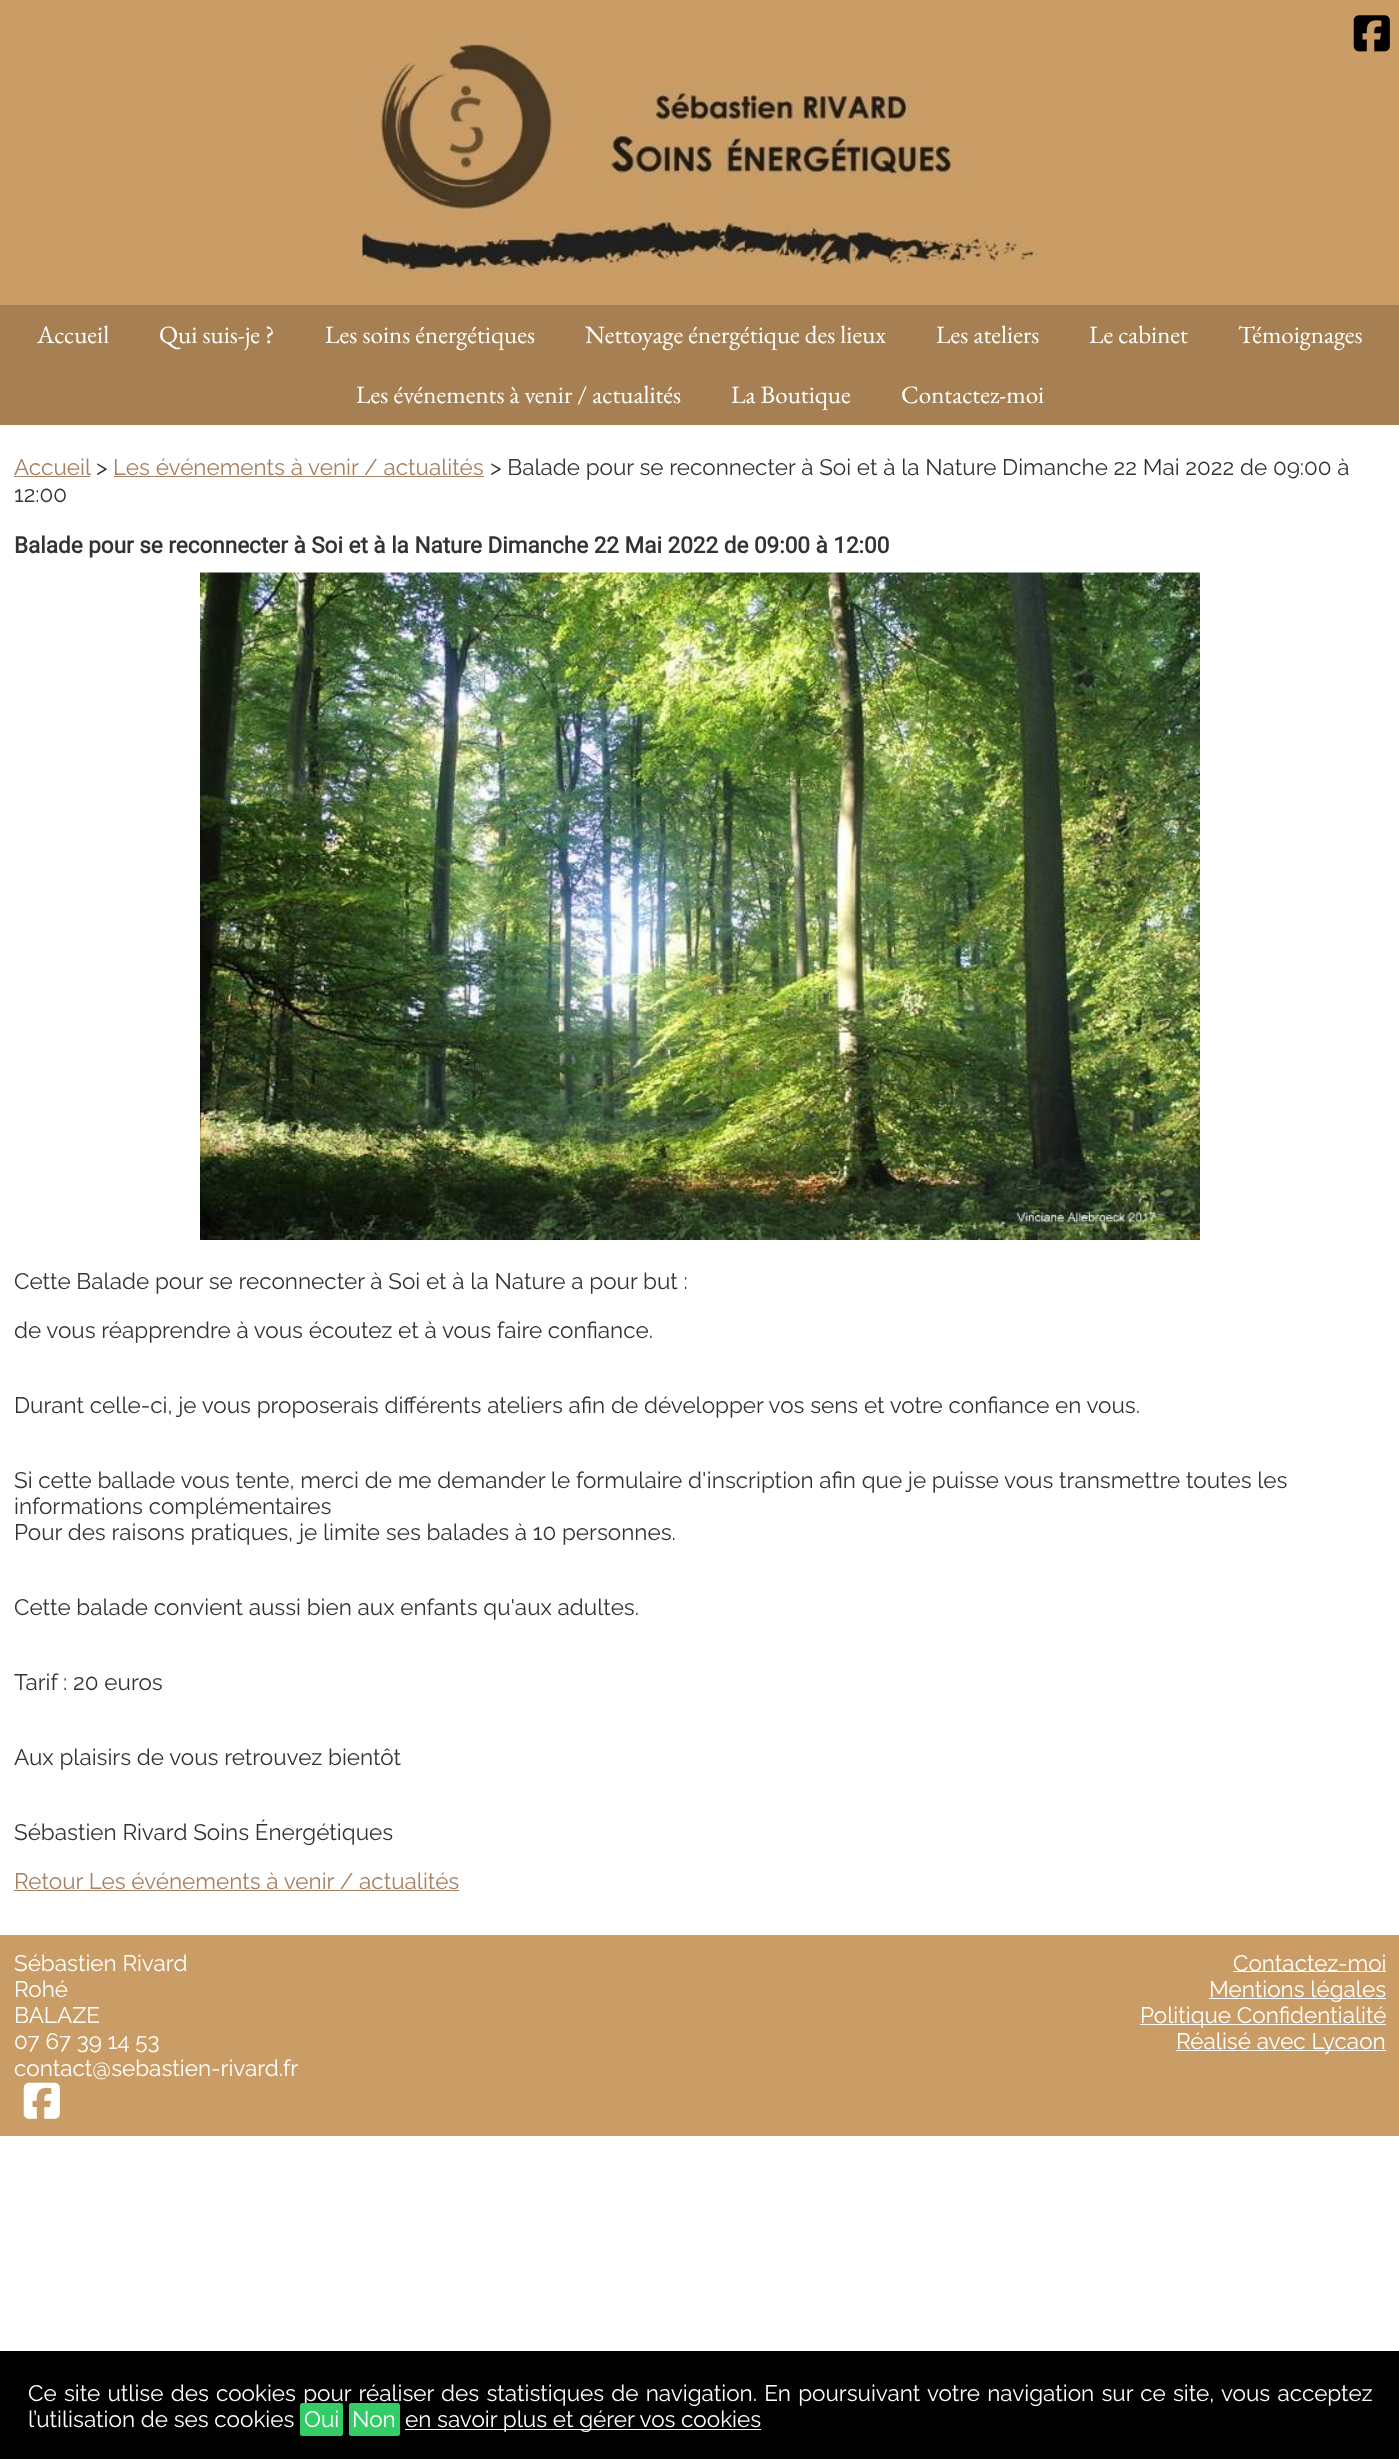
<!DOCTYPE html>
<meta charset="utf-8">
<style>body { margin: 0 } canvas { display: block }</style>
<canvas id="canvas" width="1399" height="2459"></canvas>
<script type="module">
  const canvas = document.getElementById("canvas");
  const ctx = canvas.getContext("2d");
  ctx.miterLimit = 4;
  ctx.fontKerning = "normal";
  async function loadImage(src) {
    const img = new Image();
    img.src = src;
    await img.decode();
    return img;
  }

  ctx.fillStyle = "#ffffff";
  ctx.fillRect(0, 0, 1399, 2459);
  ctx.fillStyle = "#ca9d66";
  ctx.fillRect(0, 0, 1399, 305);
  ctx.drawImage(await loadImage("img1.png"), 1353, 15, 37, 37);
  ctx.drawImage(await loadImage("img2.png"), 362, 41, 676, 234);
  ctx.fillStyle = "#a68053";
  ctx.fillRect(0, 305, 1399, 120);
  ctx.font = "25px EB Garamond";
  ctx.fillStyle = "#ffffff";
  ctx.fillText("Accueil", 37, 343);
  ctx.fillText("Qui suis-je ?", 159, 343);
  ctx.fillText("Les soins énergétiques", 325, 343);
  ctx.fillText("Nettoyage énergétique des lieux", 585, 343);
  ctx.fillText("Les ateliers", 936, 343);
  ctx.fillText("Le cabinet", 1089, 343);
  ctx.fillText("Témoignages", 1238, 343);
  ctx.fillText("Les événements à venir / actualités", 356, 403);
  ctx.fillText("La Boutique", 731, 403);
  ctx.fillText("Contactez-moi", 901, 403);
  ctx.font = "100 22.5px Raleway";
  ctx.fillStyle = "#a58063";
  ctx.fillText("Accueil", 14, 475);
  ctx.fillRect(14, 476, 76, 1);
  ctx.fillStyle = "#333333";
  ctx.fillText(">", 96, 475);
  ctx.fillStyle = "#a58063";
  ctx.fillText("Les événements à venir / actualités", 113, 475);
  ctx.fillRect(114, 476, 370, 1);
  ctx.fillStyle = "#333333";
  ctx.fillText("> Balade pour se reconnecter à Soi et à la Nature Dimanche 22 Mai 2022 de 09:00 à", 490, 475);
  ctx.fillText("12:00", 14, 502);
  ctx.font = "bold 22.5px Roboto";
  ctx.fillText("Balade pour se reconnecter à Soi et à la Nature Dimanche 22 Mai 2022 de 09:00 à 12:00", 14, 553);
  ctx.drawImage(await loadImage("img3.png"), 200, 572, 1000, 668);
  ctx.font = "100 22.5px Raleway";
  ctx.fillText("Cette Balade pour se reconnecter à Soi et à la Nature a pour but :", 14, 1289);
  ctx.fillText("de vous réapprendre à vous écoutez et à vous faire confiance.", 14, 1338);
  ctx.fillText("Durant celle-ci, je vous proposerais différents ateliers afin de développer vos sens et votre confiance en vous.", 14, 1413);
  ctx.fillText("Si cette ballade vous tente, merci de me demander le formulaire d'inscription afin que je puisse vous transmettre toutes les", 14, 1488);
  ctx.fillText("informations complémentaires", 14, 1514);
  ctx.fillText("Pour des raisons pratiques, je limite ses balades à 10 personnes.", 14, 1540);
  ctx.fillText("Cette balade convient aussi bien aux enfants qu'aux adultes.", 14, 1615);
  ctx.fillText("Tarif : 20 euros", 14, 1690);
  ctx.fillText("Aux plaisirs de vous retrouvez bientôt", 14, 1765);
  ctx.fillText("Sébastien Rivard Soins Énergétiques", 14, 1840);
  ctx.fillStyle = "#a58063";
  ctx.fillText("Retour Les événements à venir / actualités", 14, 1889);
  ctx.fillRect(14, 1890, 445, 1);
  ctx.fillStyle = "#ca9d66";
  ctx.fillRect(0, 1935, 1399, 201);
  ctx.fillStyle = "#ffffff";
  ctx.fillText("Sébastien Rivard", 14, 1971);
  ctx.fillText("Rohé", 14, 1997);
  ctx.fillText("BALAZE", 14, 2023);
  ctx.fillText("07 67 39 14 53", 14, 2049);
  ctx.fillText("contact@sebastien-rivard.fr", 14, 2076);
  ctx.drawImage(await loadImage("img4.png"), 23, 2082, 37, 37);
  ctx.fillRect(1233, 1971, 153, 1);
  ctx.fillText("Contactez-moi", 1233, 1971);
  ctx.fillRect(1209, 1998, 177, 1);
  ctx.fillText("Mentions légales", 1209, 1997);
  ctx.fillRect(1140, 2024, 246, 1);
  ctx.fillText("Politique Confidentialité", 1140, 2023);
  ctx.fillRect(1176, 2050, 210, 1);
  ctx.fillText("Réalisé avec Lycaon", 1176, 2049);
  ctx.fillStyle = "#000000";
  ctx.fillRect(0, 2351, 1399, 108);
  ctx.wordSpacing = "1.5px";
  ctx.fillStyle = "#ffffff";
  ctx.fillText("Ce site utlise des cookies pour réaliser des statistiques de navigation. En poursuivant votre navigation sur ce site, vous acceptez", 28, 2401);
  ctx.wordSpacing = "0px";
  ctx.fillText("l’utilisation de ses cookies", 28, 2427);
  ctx.fillStyle = "#33cc66";
  ctx.beginPath();
  ctx.roundRect(300, 2403, 43, 33, 2.5);
  ctx.fill();
  ctx.fillStyle = "#ffffff";
  ctx.fillText("Oui", 304, 2427);
  ctx.fillStyle = "#33cc66";
  ctx.beginPath();
  ctx.roundRect(349, 2403, 51, 33, 2.5);
  ctx.fill();
  ctx.fillStyle = "#ffffff";
  ctx.fillText("Non", 352, 2427);
  ctx.fillRect(405, 2429, 356, 1);
  ctx.fillText("en savoir plus et gérer vos cookies", 405, 2427);
</script>
